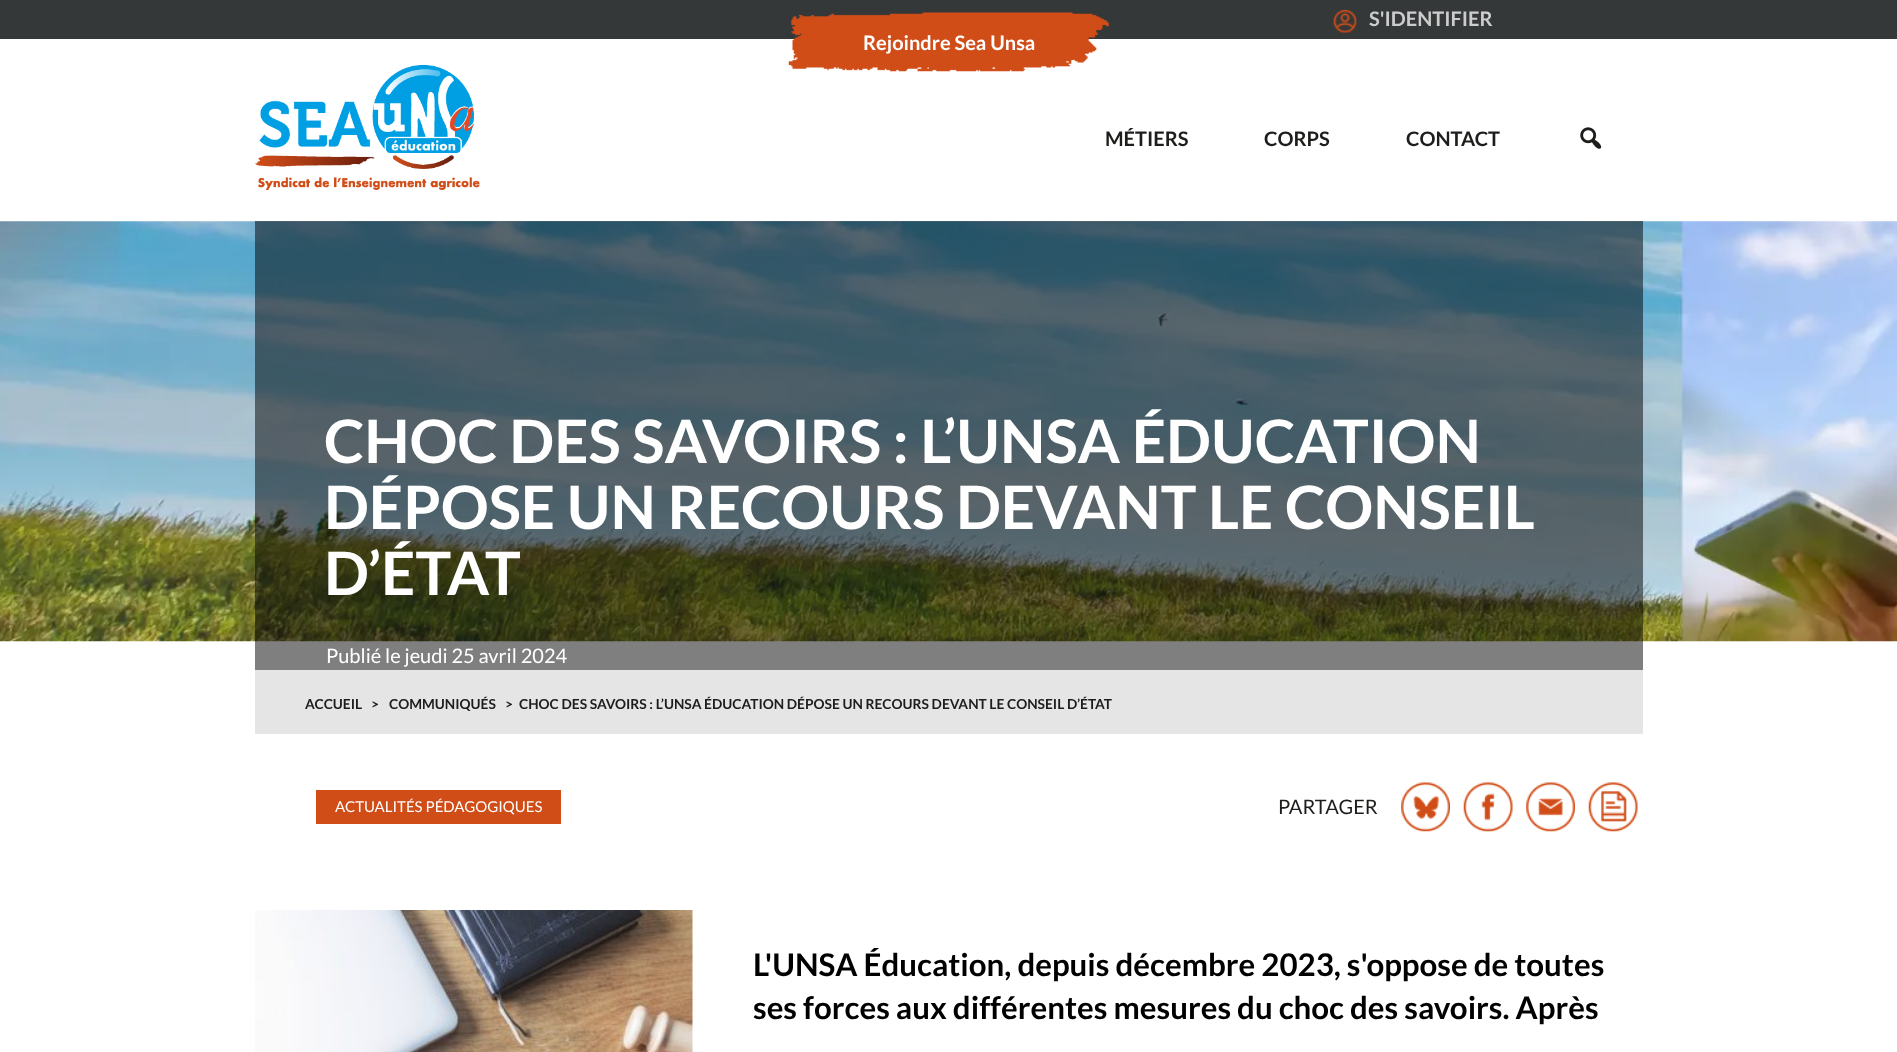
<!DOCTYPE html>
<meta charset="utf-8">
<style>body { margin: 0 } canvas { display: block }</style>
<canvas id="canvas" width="1897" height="1052"></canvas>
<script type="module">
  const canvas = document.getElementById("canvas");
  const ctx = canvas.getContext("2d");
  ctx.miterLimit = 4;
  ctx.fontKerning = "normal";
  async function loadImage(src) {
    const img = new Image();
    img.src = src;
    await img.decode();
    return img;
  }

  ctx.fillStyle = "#ffffff";
  ctx.fillRect(0, 0, 1897, 1052);
  ctx.fillStyle = "#353839";
  ctx.fillRect(0, 0, 1897, 39);
  ctx.drawImage(await loadImage("img1.png"), 1333, 10, 24, 23);
  ctx.font = "bold 20px Lato";
  ctx.fillStyle = "#cccccc";
  ctx.fillText("S'IDENTIFIER", 1369, 26);
  ctx.drawImage(await loadImage("img2.png"), 788, 12, 321, 60);
  ctx.fillStyle = "#ffffff";
  ctx.fillText("Rejoindre Sea Unsa", 863, 50);
  ctx.drawImage(await loadImage("img3.png"), 255, 64, 225, 126);
  ctx.fillStyle = "#1d1d1b";
  ctx.fillText("MÉTIERS", 1105, 146);
  ctx.fillText("CORPS", 1264, 146);
  ctx.fillText("CONTACT", 1406, 146);
  ctx.drawImage(await loadImage("img4.png"), 1580, 127, 22, 22);
  ctx.drawImage(await loadImage("img5.png"), 0, 221, 1897, 421);
  ctx.fillStyle = "rgba(0, 0, 0, 0.5)";
  ctx.fillRect(255, 221, 1388, 449);
  ctx.font = "bold 60px Lato";
  ctx.fillStyle = "#ffffff";
  ctx.fillText("CHOC DES SAVOIRS : L’UNSA ÉDUCATION", 324, 463);
  ctx.fillText("DÉPOSE UN RECOURS DEVANT LE CONSEIL", 324, 529);
  ctx.fillText("D’ÉTAT", 324, 595);
  ctx.font = "20px Lato";
  ctx.fillText("Publié le jeudi 25 avril 2024", 326, 663);
  ctx.fillStyle = "#e5e5e5";
  ctx.fillRect(255, 670, 1388, 64);
  ctx.font = "bold 13.75px Lato";
  ctx.fillStyle = "#1d1d1b";
  ctx.fillText("ACCUEIL", 305, 709);
  ctx.fillText(">", 371, 709);
  ctx.fillText("COMMUNIQUÉS", 389, 709);
  ctx.fillText(">", 505, 709);
  ctx.fillText("CHOC DES SAVOIRS : L’UNSA ÉDUCATION DÉPOSE UN RECOURS DEVANT LE CONSEIL D’ÉTAT", 519, 709);
  ctx.fillStyle = "#d14d18";
  ctx.fillRect(316, 790, 245, 34);
  ctx.font = "15px Lato";
  ctx.fillStyle = "#ffffff";
  ctx.fillText("ACTUALITÉS PÉDAGOGIQUES", 335, 812);
  ctx.font = "20px Lato";
  ctx.fillStyle = "#1d1d1b";
  ctx.fillText("PARTAGER", 1278, 814);
  ctx.drawImage(await loadImage("img6.png"), 1401, 782, 49, 50);
  ctx.drawImage(await loadImage("img7.png"), 1463, 782, 50, 50);
  ctx.drawImage(await loadImage("img8.png"), 1526, 782, 49, 50);
  ctx.drawImage(await loadImage("img9.png"), 1588, 782, 50, 50);
  ctx.drawImage(await loadImage("img10.png"), 255, 910, 438, 142);
  ctx.font = "bold 31.25px Lato";
  ctx.fillStyle = "#000000";
  ctx.fillText("L'UNSA Éducation, depuis décembre 2023, s'oppose de toutes", 753, 976);
  ctx.fillText("ses forces aux différentes mesures du choc des savoirs. Après", 753, 1019);
</script>
